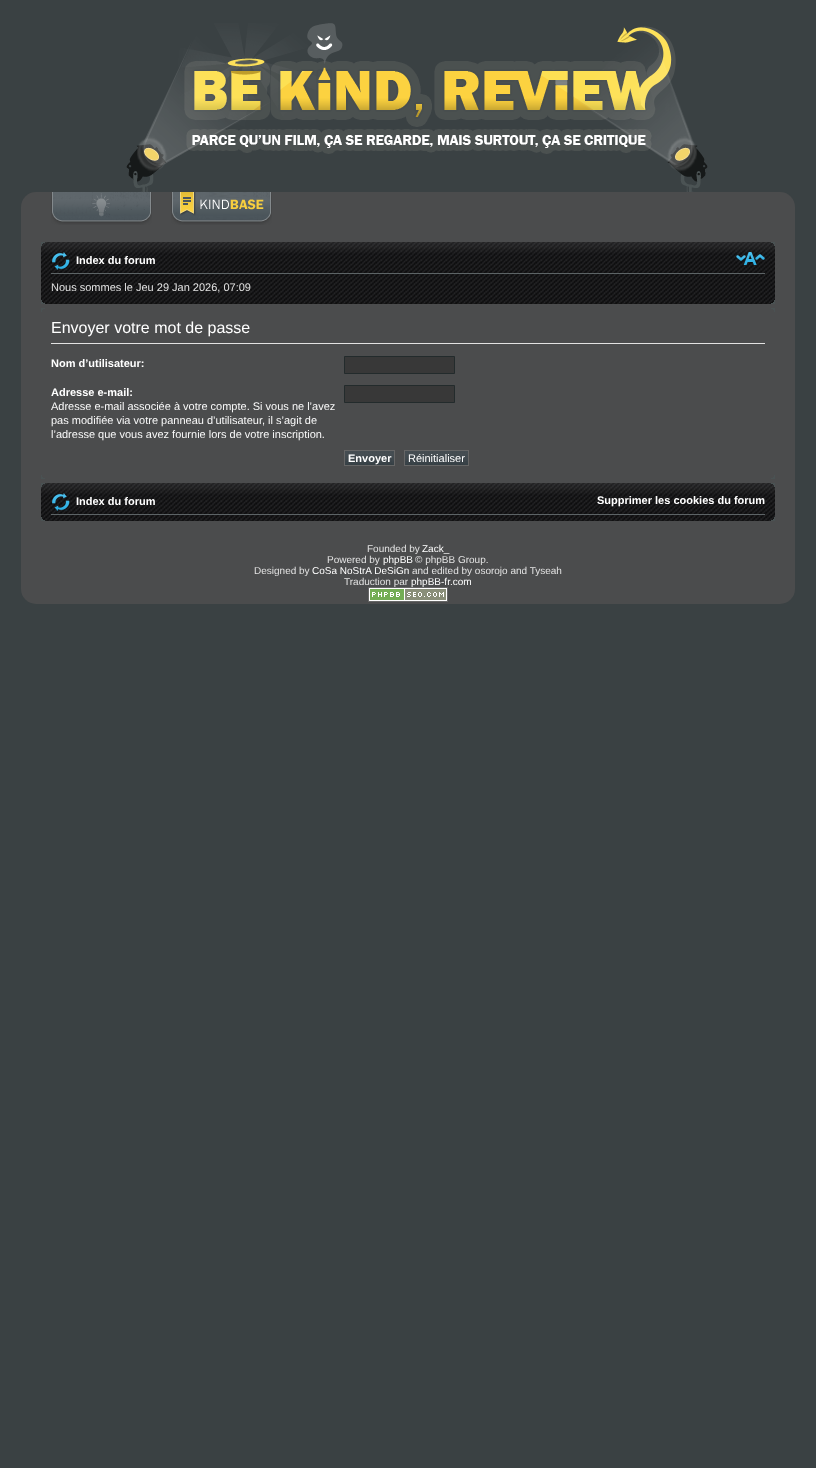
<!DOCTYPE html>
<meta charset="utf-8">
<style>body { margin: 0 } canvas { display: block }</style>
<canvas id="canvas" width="816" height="1468"></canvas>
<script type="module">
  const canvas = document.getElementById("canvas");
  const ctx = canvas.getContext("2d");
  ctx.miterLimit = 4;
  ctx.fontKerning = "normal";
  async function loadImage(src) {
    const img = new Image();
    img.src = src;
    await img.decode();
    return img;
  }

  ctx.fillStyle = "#3a4143";
  ctx.fillRect(0, 0, 816, 1468);
  ctx.drawImage(await loadImage("img1.png"), 126, 23, 582, 169);
  ctx.fillStyle = "#4b4c4d";
  ctx.beginPath();
  ctx.roundRect(21, 192, 774, 412, 15);
  ctx.fill();
  ctx.drawImage(await loadImage("img2.png"), 51, 192, 101, 33);
  ctx.drawImage(await loadImage("img3.png"), 171, 192, 101, 33);
  ctx.drawImage(await loadImage("img4.png"), 41, 242, 734, 62);
  ctx.drawImage(await loadImage("img5.png"), 41, 242, 4, 4);
  ctx.drawImage(await loadImage("img6.png"), 771, 242, 4, 4);
  ctx.fillStyle = "#5d6466";
  ctx.fillRect(51, 273, 714, 1);
  ctx.drawImage(await loadImage("img7.png"), 52, 252, 18, 18);
  ctx.font = "bold 11px Liberation Sans";
  ctx.fillStyle = "#ffffff";
  ctx.fillText("Index du forum", 76, 264);
  ctx.drawImage(await loadImage("img8.png"), 736, 252, 29, 13);
  ctx.font = "11px Liberation Sans";
  ctx.fillStyle = "#e2e2e2";
  ctx.fillText("Nous sommes le Jeu 29 Jan 2026, 07:09", 51, 291);
  ctx.drawImage(await loadImage("img9.png"), 41, 300, 4, 4);
  ctx.drawImage(await loadImage("img10.png"), 771, 300, 4, 4);
  ctx.drawImage(await loadImage("img11.png"), 41, 308, 4, 4);
  ctx.drawImage(await loadImage("img12.png"), 771, 308, 4, 4);
  ctx.fillRect(51, 343, 714, 1);
  ctx.font = "16px Liberation Sans";
  ctx.fillStyle = "#ffffff";
  ctx.fillText("Envoyer votre mot de passe", 51, 333);
  ctx.font = "bold 11px Liberation Sans";
  ctx.fillText("Nom d’utilisateur:", 51, 367);
  ctx.fillStyle = "#383838";
  ctx.beginPath();
  ctx.rect(344.5, 356.5, 110, 17);
  ctx.fill();
  ctx.strokeStyle = "#232b2c";
  ctx.stroke();
  ctx.fillStyle = "#ffffff";
  ctx.fillText("Adresse e-mail:", 51, 396);
  ctx.font = "11px Liberation Sans";
  ctx.fillStyle = "#f9f9f9";
  ctx.fillText("Adresse e-mail associée à votre compte. Si vous ne l’avez", 51, 410);
  ctx.fillText("pas modifiée via votre panneau d’utilisateur, il s’agit de", 51, 424);
  ctx.fillText("l’adresse que vous avez fournie lors de votre inscription.", 51, 438);
  ctx.fillStyle = "#383838";
  ctx.beginPath();
  ctx.rect(344.5, 385.5, 110, 17);
  ctx.fill();
  ctx.stroke();
  ctx.drawImage(await loadImage("img13.png"), 345, 451, 49, 14);
  ctx.strokeStyle = "#666666";
  ctx.strokeRect(344.5, 450.5, 50, 15);
  ctx.font = "bold 11px Liberation Sans";
  ctx.fillStyle = "#ffffff";
  ctx.fillText("Envoyer", 348, 462);
  ctx.drawImage(await loadImage("img14.png"), 405, 451, 63, 14);
  ctx.strokeRect(404.5, 450.5, 64, 15);
  ctx.font = "11px Liberation Sans";
  ctx.fillText("Réinitialiser", 408, 462);
  ctx.drawImage(await loadImage("img15.png"), 41, 475, 4, 4);
  ctx.drawImage(await loadImage("img16.png"), 771, 475, 4, 4);
  ctx.drawImage(await loadImage("img17.png"), 41, 483, 734, 38);
  ctx.drawImage(await loadImage("img5.png"), 41, 483, 4, 4);
  ctx.drawImage(await loadImage("img6.png"), 771, 483, 4, 4);
  ctx.fillStyle = "#5d6466";
  ctx.fillRect(51, 514, 714, 1);
  ctx.drawImage(await loadImage("img7.png"), 52, 493, 18, 18);
  ctx.font = "bold 11px Liberation Sans";
  ctx.fillStyle = "#ffffff";
  ctx.fillText("Index du forum", 76, 505);
  ctx.fillText("Supprimer les cookies du forum", 597, 504);
  ctx.drawImage(await loadImage("img18.png"), 41, 517, 4, 4);
  ctx.drawImage(await loadImage("img19.png"), 771, 517, 4, 4);
  ctx.font = "10px Liberation Sans";
  ctx.fillStyle = "#e2e2e2";
  ctx.fillText("Founded by", 367, 552);
  ctx.fillStyle = "#ffffff";
  ctx.fillText("Zack_", 422, 552);
  ctx.fillStyle = "#e2e2e2";
  ctx.fillText("Powered by", 327, 563);
  ctx.fillStyle = "#ffffff";
  ctx.fillText("phpBB", 383, 563);
  ctx.fillStyle = "#e2e2e2";
  ctx.fillText("© phpBB Group.", 415, 563);
  ctx.fillText("Designed by", 254, 574);
  ctx.fillStyle = "#ffffff";
  ctx.fillText("CoSa NoStrA DeSiGn", 312, 574);
  ctx.fillStyle = "#e2e2e2";
  ctx.fillText("and edited by osorojo and Tyseah", 412, 574);
  ctx.fillText("Traduction par", 344, 585);
  ctx.fillStyle = "#ffffff";
  ctx.fillText("phpBB-fr.com", 411, 585);
  ctx.drawImage(await loadImage("img20.png"), 368, 587, 80, 15);
</script>
